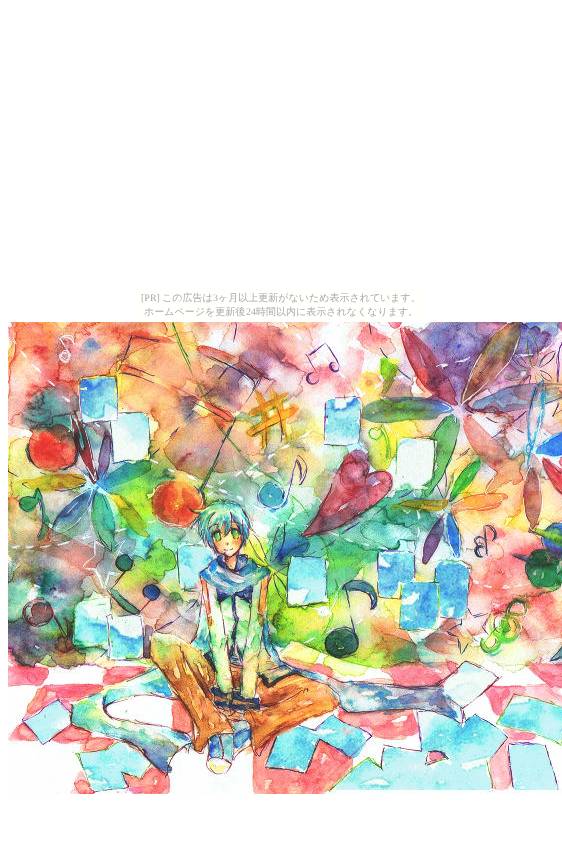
<!DOCTYPE html>
<meta charset="utf-8">
<style>body { margin: 0 } canvas { display: block }</style>
<canvas id="canvas" width="562" height="855"></canvas>
<script type="module">
  const canvas = document.getElementById("canvas");
  const ctx = canvas.getContext("2d");
  ctx.miterLimit = 4;
  ctx.fontKerning = "normal";
  async function loadImage(src) {
    const img = new Image();
    img.src = src;
    await img.decode();
    return img;
  }

  ctx.fillStyle = "#ffffff";
  ctx.fillRect(0, 0, 562, 855);
  ctx.fillStyle = "#fffffc";
  ctx.fillRect(138, 288, 286, 34);
  ctx.font = "10px Liberation Serif";
  ctx.fillStyle = "#aaaaaa";
  ctx.fillText("[PR]", 141, 301);
  ctx.font = "500 10px WenQuanYi Zen Hei";
  ctx.fillText("この広告は", 162, 301);
  ctx.font = "10px Liberation Serif";
  ctx.fillText("3", 213, 301);
  ctx.font = "500 10px WenQuanYi Zen Hei";
  ctx.fillText("ヶ月以上更新がないため表示されています。", 218, 301);
  ctx.fillText("ホームページを更新後", 144, 315);
  ctx.font = "10px Liberation Serif";
  ctx.fillText("24", 246, 315);
  ctx.font = "500 10px WenQuanYi Zen Hei";
  ctx.fillText("時間以内に表示されなくなります。", 256, 315);
  ctx.drawImage(await loadImage("img1.png"), 8, 322, 554, 472);
</script>
